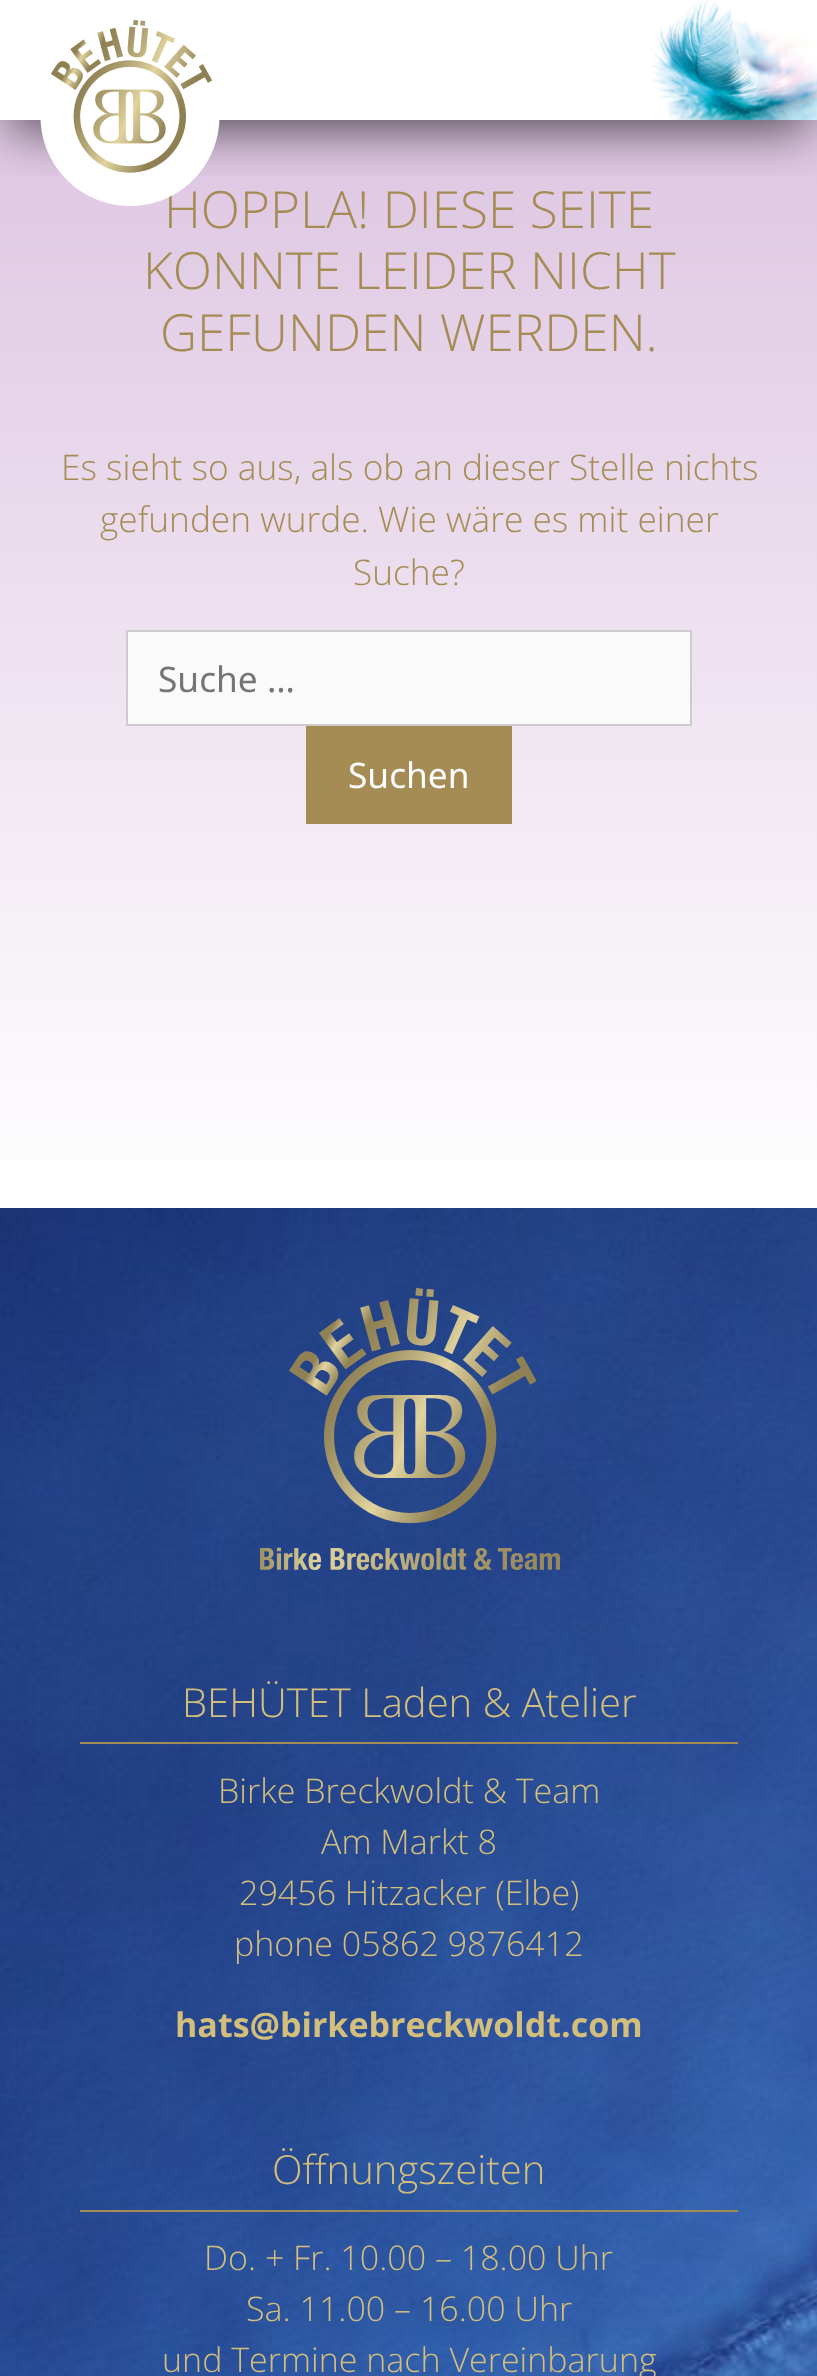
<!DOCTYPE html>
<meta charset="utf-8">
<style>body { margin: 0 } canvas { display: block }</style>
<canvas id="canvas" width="817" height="2376"></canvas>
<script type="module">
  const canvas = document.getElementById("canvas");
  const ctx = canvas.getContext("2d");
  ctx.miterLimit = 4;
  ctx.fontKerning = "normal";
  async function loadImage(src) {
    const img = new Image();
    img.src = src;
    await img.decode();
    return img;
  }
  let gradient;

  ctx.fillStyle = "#ffffff";
  ctx.fillRect(0, 0, 817, 2376);
  gradient = ctx.createLinearGradient(409, 120, 409, 1208);
  gradient.addColorStop(0, "#dec6e2");
  gradient.addColorStop(1, "#ffffff");
  ctx.fillStyle = gradient;
  ctx.fillRect(0, 120, 817, 1040);
  ctx.save();
  ctx.beginPath();
  ctx.rect(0, 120, 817, 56);
  ctx.clip();
  ctx.fillStyle = "rgba(0, 0, 0, 0.63)";
  ctx.filter = "blur(25px)";
  ctx.beginPath();
  ctx.rect(10, 30, 798, 100);
  ctx.fill();
  ctx.filter = "none";
  ctx.restore();
  ctx.font = "300 51.25px Open Sans";
  ctx.fillStyle = "#a58c55";
  ctx.fillText("HOPPLA! DIESE SEITE", 164, 228);
  ctx.drawImage(await loadImage("img1.png"), 40, 20, 180, 186);
  ctx.drawImage(await loadImage("img2.png"), 652, 0, 165, 120);
  ctx.fillText("KONNTE LEIDER NICHT", 143, 289);
  ctx.fillText("GEFUNDEN WERDEN.", 160, 351);
  ctx.font = "300 35.25px Open Sans";
  ctx.fillText("Es sieht so aus, als ob an dieser Stelle nichts", 61, 480);
  ctx.fillText("gefunden wurde. Wie wäre es mit einer", 100, 532);
  ctx.fillText("Suche?", 353, 585);
  ctx.fillStyle = "#fafafa";
  ctx.beginPath();
  ctx.rect(127, 631, 564, 94);
  ctx.fill();
  ctx.strokeStyle = "#cccccc";
  ctx.lineWidth = 2;
  ctx.stroke();
  ctx.font = "35.25px Noto Sans";
  ctx.fillStyle = "#757575";
  ctx.fillText("Suche …", 158, 692);
  ctx.fillStyle = "#a58c55";
  ctx.fillRect(306, 726, 206, 98);
  ctx.fillStyle = "#ffffff";
  ctx.fillText("Suchen", 348, 788);
  ctx.drawImage(await loadImage("img3.png"), 0, 1208, 817, 1168);
  ctx.drawImage(await loadImage("img4.png"), 260, 1288, 300, 282);
  ctx.fillStyle = "#a58c55";
  ctx.fillRect(80, 1742, 658, 2);
  ctx.font = "300 40px Open Sans";
  ctx.fillStyle = "#d4be7c";
  ctx.fillText("BEHÜTET Laden & Atelier", 182, 1717);
  ctx.font = "300 34px Open Sans";
  ctx.fillText("Birke Breckwoldt & Team", 218, 1803);
  ctx.fillText("Am Markt 8", 321, 1854);
  ctx.fillText("29456 Hitzacker (Elbe)", 239, 1905);
  ctx.fillText("phone 05862 9876412", 234, 1956);
  ctx.font = "bold 34px Open Sans";
  ctx.fillText("hats@birkebreckwoldt.com", 175, 2037);
  ctx.fillStyle = "#a58c55";
  ctx.fillRect(80, 2210, 658, 2);
  ctx.font = "300 40px Open Sans";
  ctx.fillStyle = "#d4be7c";
  ctx.fillText("Öffnungszeiten", 272, 2184);
  ctx.font = "300 34px Open Sans";
  ctx.fillText("Do. + Fr. 10.00 – 18.00 Uhr", 204, 2270);
  ctx.fillText("Sa. 11.00 – 16.00 Uhr", 246, 2321);
  ctx.fillText("und Termine nach Vereinbarung", 162, 2372);
</script>
